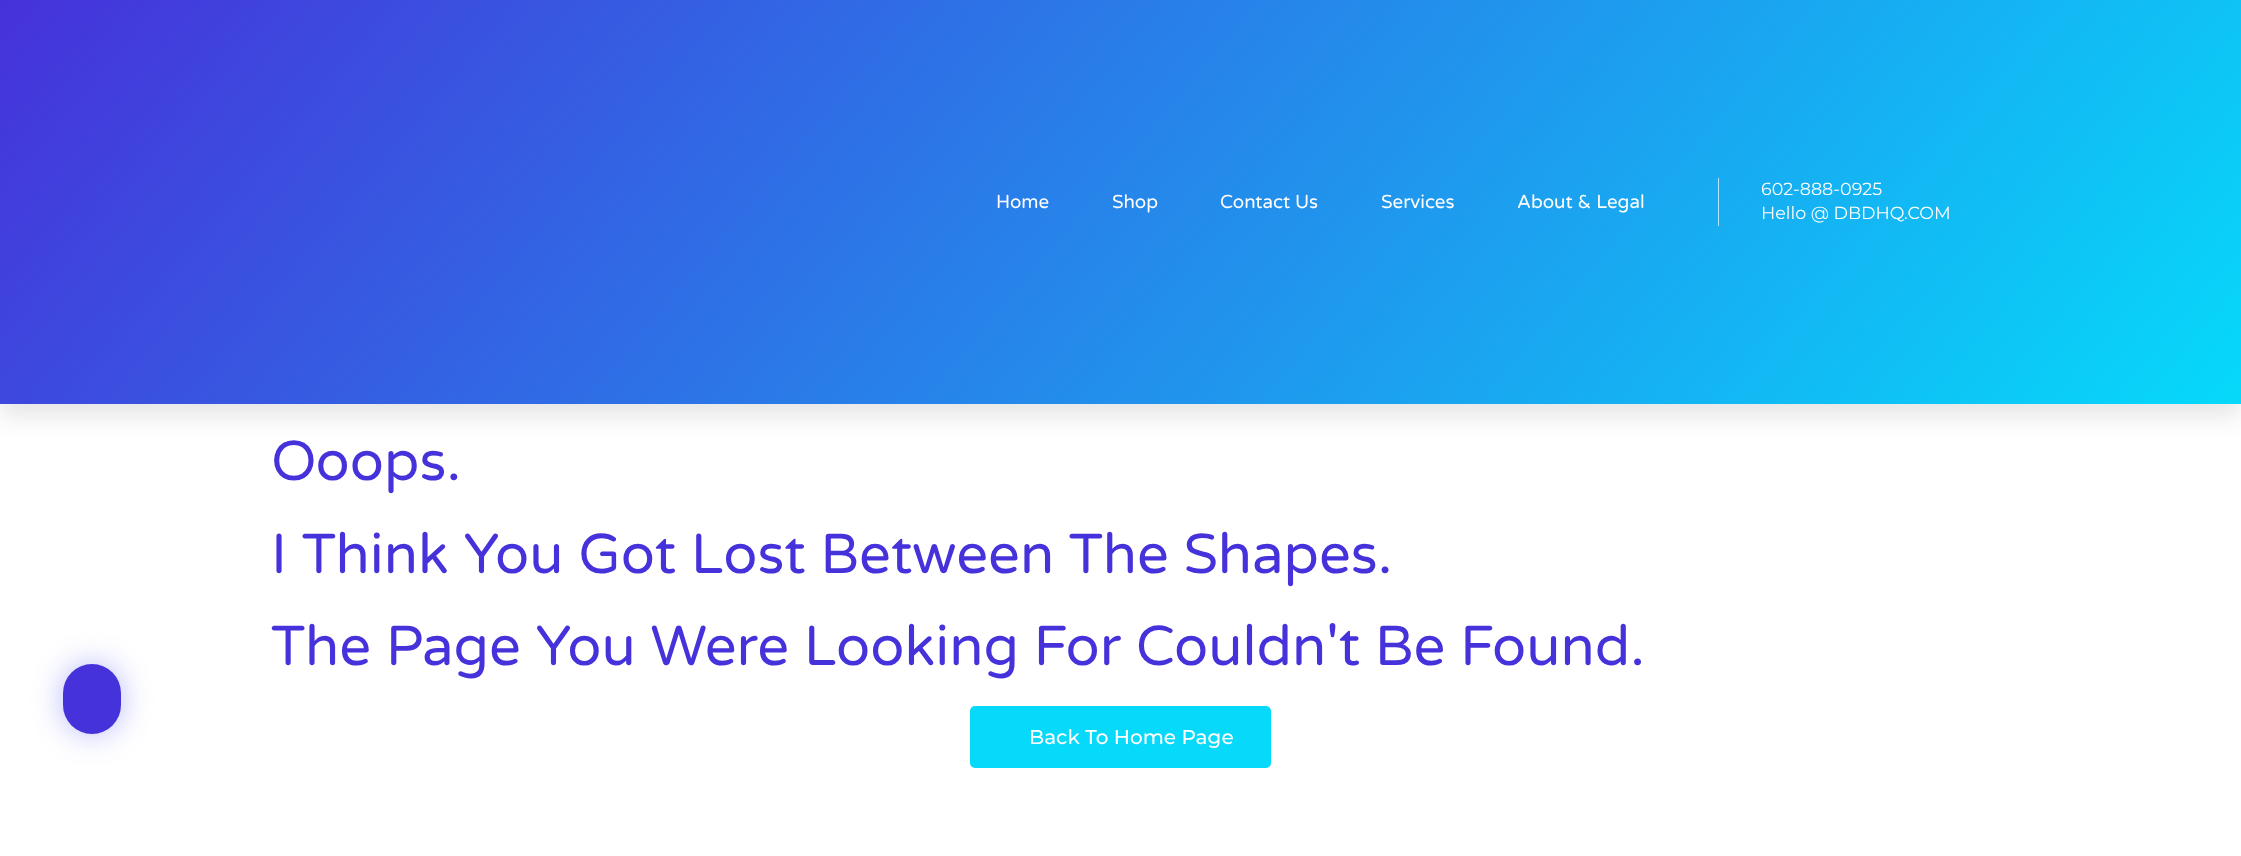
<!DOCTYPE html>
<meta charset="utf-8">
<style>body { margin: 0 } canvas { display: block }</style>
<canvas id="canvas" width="2241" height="856"></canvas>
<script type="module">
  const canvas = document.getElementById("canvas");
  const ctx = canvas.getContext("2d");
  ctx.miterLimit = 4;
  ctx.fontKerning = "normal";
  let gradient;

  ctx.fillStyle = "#ffffff";
  ctx.fillRect(0, 0, 2241, 856);
  ctx.fillStyle = "rgba(0, 0, 0, 0.1)";
  ctx.filter = "blur(12.5px)";
  ctx.beginPath();
  ctx.rect(0, 13, 2241, 403);
  ctx.fill();
  ctx.filter = "none";
  gradient = ctx.createLinearGradient(364, -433, 1878, 837);
  gradient.addColorStop(0, "#4632da");
  gradient.addColorStop(1, "#06d9fa");
  ctx.fillStyle = gradient;
  ctx.fillRect(0, 0, 2241, 404);
  ctx.font = "18.75px Varela Round";
  ctx.fillStyle = "#fffefe";
  ctx.fillText("Home", 996, 208);
  ctx.fillText("Shop", 1112, 208);
  ctx.fillText("Contact Us", 1220, 208);
  ctx.fillText("Services", 1381, 208);
  ctx.fillText("About & Legal", 1517, 208);
  ctx.fillStyle = "#b9e6fb";
  ctx.fillRect(1718, 178, 1, 48);
  ctx.font = "17.5px Montserrat";
  ctx.fillStyle = "#fffefe";
  ctx.fillText("602-888-0925", 1761, 195);
  ctx.fillText("Hello @ DBDHQ.COM", 1761, 219);
  ctx.fillStyle = "rgba(53, 56, 240, 0.35)";
  ctx.filter = "blur(15.5px)";
  ctx.beginPath();
  ctx.roundRect(63, 664, 58, 70, 29);
  ctx.fill();
  ctx.filter = "none";
  ctx.fillStyle = "#4632da";
  ctx.beginPath();
  ctx.roundRect(63, 664, 58, 70, 29);
  ctx.fill();
  ctx.font = "56.25px Varela Round";
  ctx.fillText("Ooops.", 271, 480);
  ctx.fillText("I Think You Got Lost Between The Shapes.", 271, 573);
  ctx.fillText("The Page You Were Looking For Couldn't Be Found.", 271, 665);
  ctx.fillStyle = "#06d9fa";
  ctx.beginPath();
  ctx.roundRect(970, 706, 301, 62, 5);
  ctx.fill();
  ctx.font = "500 20px Montserrat";
  ctx.fillStyle = "#fffefe";
  ctx.fillText("Back To Home Page", 1029, 744);
</script>
